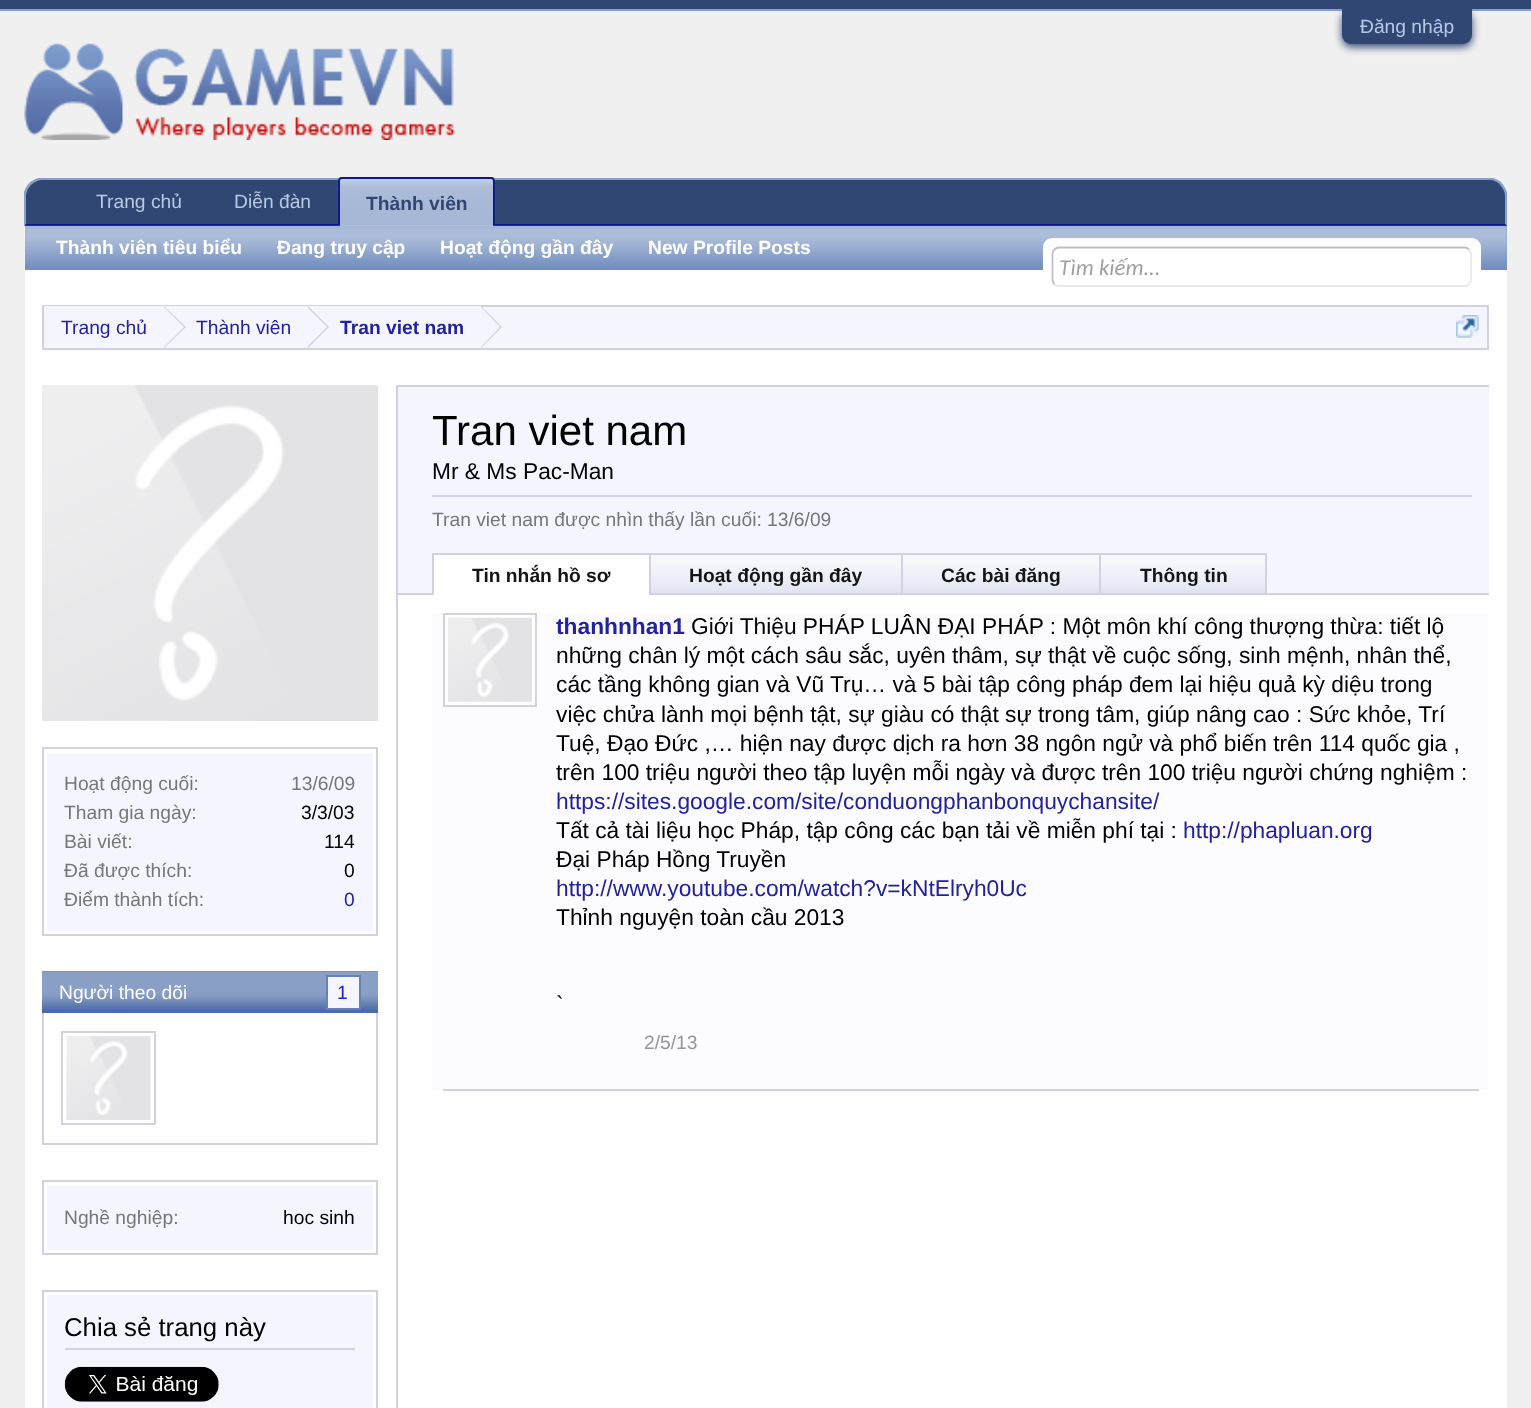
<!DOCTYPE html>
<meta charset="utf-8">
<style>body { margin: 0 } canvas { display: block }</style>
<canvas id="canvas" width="1531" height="1408"></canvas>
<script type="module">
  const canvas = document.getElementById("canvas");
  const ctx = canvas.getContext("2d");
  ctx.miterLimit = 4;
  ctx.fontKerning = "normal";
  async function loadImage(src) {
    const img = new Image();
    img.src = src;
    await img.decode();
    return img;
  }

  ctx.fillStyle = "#f0f0f0";
  ctx.fillRect(0, 0, 1531, 1408);
  ctx.fillStyle = "#304774";
  ctx.fillRect(0, 0, 1531, 9);
  ctx.fillStyle = "#899fc5";
  ctx.fillRect(0, 9, 1531, 2);
  ctx.fillStyle = "#304774";
  ctx.filter = "blur(4.5px)";
  ctx.beginPath();
  ctx.roundRect(1342, 12, 130, 35, 9);
  ctx.fill();
  ctx.filter = "none";
  ctx.beginPath();
  ctx.roundRect(1342, 9, 130, 35, [0, 0, 9, 9]);
  ctx.fill();
  ctx.font = "19.25px Liberation Sans";
  ctx.fillStyle = "#b8c9e3";
  ctx.fillText("Đăng nhập", 1360, 33);
  ctx.drawImage(await loadImage("img1.png"), 24, 43, 431, 97);
  ctx.fillStyle = "#304774";
  ctx.beginPath();
  ctx.roundRect(25, 179, 1482, 47, [18, 18, 0, 0]);
  ctx.fill();
  ctx.fillStyle = "#899fc5";
  ctx.beginPath();
  ctx.moveTo(42, 180);
  ctx.bezierCurveTo(38, 180, 34, 182, 31, 185);
  ctx.lineTo(29, 183);
  ctx.bezierCurveTo(32, 181, 34, 179, 38, 178);
  ctx.lineTo(1493, 178);
  ctx.bezierCurveTo(1497, 179, 1500, 181, 1502, 183);
  ctx.lineTo(1500, 185);
  ctx.bezierCurveTo(1498, 182, 1494, 180, 1489, 180);
  ctx.closePath();
  ctx.fill();
  ctx.beginPath();
  ctx.moveTo(1502, 183);
  ctx.bezierCurveTo(1504, 186, 1506, 189, 1507, 193);
  ctx.lineTo(1507, 226);
  ctx.lineTo(1505, 224);
  ctx.lineTo(1505, 196);
  ctx.bezierCurveTo(1505, 192, 1503, 188, 1500, 185);
  ctx.closePath();
  ctx.fill();
  ctx.fillStyle = "#0b198c";
  ctx.beginPath();
  ctx.moveTo(1507, 226);
  ctx.lineTo(1505, 224);
  ctx.lineTo(26, 224);
  ctx.lineTo(24, 226);
  ctx.closePath();
  ctx.fill();
  ctx.fillStyle = "#899fc5";
  ctx.beginPath();
  ctx.moveTo(24, 226);
  ctx.lineTo(24, 192);
  ctx.bezierCurveTo(25, 188, 27, 186, 29, 183);
  ctx.lineTo(31, 185);
  ctx.bezierCurveTo(28, 188, 26, 192, 26, 196);
  ctx.lineTo(26, 224);
  ctx.closePath();
  ctx.fill();
  ctx.fillStyle = "#b8c9e3";
  ctx.fillText("Trang chủ", 96, 208);
  ctx.fillText("Diễn đàn", 234, 208);
  ctx.fillStyle = "#738fbf";
  ctx.beginPath();
  ctx.roundRect(338, 177, 157, 51, [4, 4, 0, 0]);
  ctx.fill();
  ctx.drawImage(await loadImage("img2.png"), 337, 178, 159, 48);
  ctx.beginPath();
  ctx.roundRect(339, 178, 155, 49, [3, 3, 0, 0]);
  ctx.strokeStyle = "#0b198c";
  ctx.lineWidth = 2;
  ctx.stroke();
  ctx.font = "bold 19.25px Liberation Sans";
  ctx.fillStyle = "#304774";
  ctx.fillText("Thành viên", 366, 210);
  ctx.fillStyle = "#738fbf";
  ctx.fillRect(25, 226, 1482, 44);
  ctx.drawImage(await loadImage("img3.png"), 24, 225, 1483, 42);
  ctx.fillStyle = "#ffffff";
  ctx.fillText("Thành viên tiêu biểu", 56, 254);
  ctx.fillText("Đang truy cập", 277, 254);
  ctx.fillText("Hoạt động gần đây", 440, 254);
  ctx.fillText("New Profile Posts", 648, 254);
  ctx.fillRect(25, 270, 1482, 1138);
  ctx.fillStyle = "#fcfcff";
  ctx.beginPath();
  ctx.roundRect(1043, 238, 438, 49, 9);
  ctx.fill();
  ctx.fillStyle = "#ffffff";
  ctx.fillRect(1043, 247, 438, 40);
  ctx.beginPath();
  ctx.moveTo(1469, 249.5);
  ctx.bezierCurveTo(1470, 250.5, 1471, 252, 1471, 254);
  ctx.lineTo(1471, 280);
  ctx.bezierCurveTo(1471, 281.5, 1470, 283, 1469, 284.5);
  ctx.bezierCurveTo(1468, 285.5, 1466.5, 286, 1465, 286);
  ctx.lineTo(1059, 286);
  ctx.bezierCurveTo(1057, 286, 1055.5, 285.5, 1054.5, 284.5);
  ctx.strokeStyle = "#e9e9e9";
  ctx.lineWidth = 1.8;
  ctx.stroke();
  ctx.beginPath();
  ctx.moveTo(1054.5, 284.5);
  ctx.bezierCurveTo(1053.5, 283, 1052.5, 281.5, 1052.5, 280);
  ctx.lineTo(1052.5, 254);
  ctx.bezierCurveTo(1052.5, 252, 1053.5, 250.5, 1054.5, 249.5);
  ctx.bezierCurveTo(1055.5, 248.5, 1057, 247.5, 1059, 247.5);
  ctx.lineTo(1465, 247.5);
  ctx.bezierCurveTo(1466.5, 247.5, 1468, 248.5, 1469, 249.5);
  ctx.strokeStyle = "#c0c0c0";
  ctx.stroke();
  ctx.font = "italic 22.75px Carlito";
  ctx.fillStyle = "#a0a0a0";
  ctx.fillText("Tìm kiếm...", 1059, 275);
  ctx.fillStyle = "#f5f5ff";
  ctx.fillRect(481, 307, 1006, 41);
  ctx.strokeStyle = "#d1d1e1";
  ctx.lineWidth = 2;
  ctx.strokeRect(43, 306, 1445, 43);
  ctx.fillRect(44, 306, 437, 42);
  ctx.font = "19.25px Liberation Sans";
  ctx.fillStyle = "#22229c";
  ctx.fillText("Trang chủ", 61, 334);
  ctx.fillStyle = "#d1d1e1";
  ctx.beginPath();
  ctx.moveTo(164, 348);
  ctx.lineTo(164, 306);
  ctx.lineTo(186, 327);
  ctx.closePath();
  ctx.fill();
  ctx.fillStyle = "#f5f5ff";
  ctx.beginPath();
  ctx.moveTo(163, 348);
  ctx.lineTo(163, 306);
  ctx.lineTo(184, 327);
  ctx.closePath();
  ctx.fill();
  ctx.fillStyle = "#22229c";
  ctx.fillText("Thành viên", 196, 334);
  ctx.fillStyle = "#d1d1e1";
  ctx.beginPath();
  ctx.moveTo(308, 348);
  ctx.lineTo(308, 306);
  ctx.lineTo(329, 327);
  ctx.closePath();
  ctx.fill();
  ctx.fillStyle = "#f5f5ff";
  ctx.beginPath();
  ctx.moveTo(306, 348);
  ctx.lineTo(306, 306);
  ctx.lineTo(327, 327);
  ctx.closePath();
  ctx.fill();
  ctx.font = "bold 19.25px Liberation Sans";
  ctx.fillStyle = "#22229c";
  ctx.fillText("Tran viet nam", 340, 334);
  ctx.fillStyle = "#d1d1e1";
  ctx.beginPath();
  ctx.moveTo(481, 348);
  ctx.lineTo(481, 306);
  ctx.lineTo(502, 327);
  ctx.closePath();
  ctx.fill();
  ctx.fillStyle = "#f5f5ff";
  ctx.beginPath();
  ctx.moveTo(480, 348);
  ctx.lineTo(480, 306);
  ctx.lineTo(500, 327);
  ctx.closePath();
  ctx.fill();
  ctx.drawImage(await loadImage("img4.png"), 1456, 315, 23, 23);
  ctx.fillStyle = "#d1d1e1";
  ctx.fillRect(397, 385, 1092, 2);
  ctx.fillRect(396, 385, 2, 1023);
  ctx.drawImage(await loadImage("img5.png"), 42, 385, 336, 336);
  ctx.strokeRect(43, 748, 334, 187);
  ctx.fillStyle = "#f5f5ff";
  ctx.fillRect(47, 753, 326, 178);
  ctx.font = "19.25px Liberation Sans";
  ctx.fillStyle = "#777777";
  ctx.fillText("Hoạt động cuối:", 64, 790);
  ctx.fillText("13/6/09", 291, 790);
  ctx.fillText("Tham gia ngày:", 64, 819);
  ctx.fillStyle = "#000000";
  ctx.fillText("3/3/03", 301, 819);
  ctx.fillStyle = "#777777";
  ctx.fillText("Bài viết:", 64, 848);
  ctx.fillStyle = "#000000";
  ctx.fillText("114", 324, 848);
  ctx.fillStyle = "#777777";
  ctx.fillText("Đã được thích:", 64, 877);
  ctx.fillStyle = "#000000";
  ctx.fillText("0", 344, 877);
  ctx.fillStyle = "#777777";
  ctx.fillText("Điểm thành tích:", 64, 906);
  ctx.fillStyle = "#22229c";
  ctx.fillText("0", 344, 906);
  ctx.fillStyle = "#4b6ca6";
  ctx.fillRect(42, 971, 336, 42);
  ctx.drawImage(await loadImage("img6.png"), 42, 971, 336, 39);
  ctx.fillStyle = "#ffffff";
  ctx.fillText("Người theo dõi", 59, 999);
  ctx.fillStyle = "#f5f5ff";
  ctx.beginPath();
  ctx.rect(327, 976, 33, 33);
  ctx.fill();
  ctx.strokeStyle = "#6682b3";
  ctx.stroke();
  ctx.fillStyle = "#2222c9";
  ctx.fillText("1", 337, 999);
  ctx.fillStyle = "#d1d1e1";
  ctx.fillRect(376, 1013, 2, 132);
  ctx.fillRect(42, 1143, 336, 2);
  ctx.fillRect(42, 1013, 2, 132);
  ctx.drawImage(await loadImage("img7.png"), 66, 1036, 85, 84);
  ctx.strokeStyle = "#d1d1e1";
  ctx.strokeRect(62, 1032, 93, 92);
  ctx.strokeRect(43, 1181, 334, 73);
  ctx.fillStyle = "#f5f5ff";
  ctx.fillRect(47, 1185, 326, 65);
  ctx.fillStyle = "#777777";
  ctx.fillText("Nghề nghiệp:", 64, 1224);
  ctx.fillStyle = "#000000";
  ctx.fillText("hoc sinh", 283, 1224);
  ctx.strokeRect(43, 1291, 334, 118);
  ctx.fillStyle = "#f5f5ff";
  ctx.fillRect(47, 1295, 326, 113);
  ctx.fillStyle = "#d1d1e1";
  ctx.fillRect(65, 1348, 290, 2);
  ctx.font = "25.75px Liberation Sans";
  ctx.fillStyle = "#000000";
  ctx.fillText("Chia sẻ trang này", 64, 1336);
  ctx.drawImage(await loadImage("img8.png"), 64, 1366, 155, 36);
  ctx.fillStyle = "#f5f5ff";
  ctx.fillRect(398, 387, 1091, 206);
  ctx.font = "42px Liberation Sans";
  ctx.fillStyle = "#000000";
  ctx.fillText("Tran viet nam", 432, 445);
  ctx.font = "22.75px Liberation Sans";
  ctx.fillText("Mr & Ms Pac-Man", 432, 479);
  ctx.fillStyle = "#d1d1e1";
  ctx.fillRect(432, 495, 1040, 2);
  ctx.font = "19.25px Liberation Sans";
  ctx.fillStyle = "#777777";
  ctx.fillText("Tran viet nam được nhìn thấy lần cuối: 13/6/09", 432, 526);
  ctx.fillStyle = "#d1d1e1";
  ctx.fillRect(397, 593, 1092, 2);
  ctx.fillStyle = "#ffffff";
  ctx.fillRect(434, 555, 215, 40);
  ctx.fillStyle = "#d1d1e1";
  ctx.fillRect(432, 553, 835, 2);
  ctx.fillRect(432, 553, 2, 42);
  ctx.font = "bold 19.25px Liberation Sans";
  ctx.fillStyle = "#141414";
  ctx.fillText("Tin nhắn hồ sơ", 472, 582);
  ctx.fillStyle = "#e1e4f2";
  ctx.fillRect(651, 555, 250, 38);
  ctx.drawImage(await loadImage("img9.png"), 651, 555, 250, 35);
  ctx.fillStyle = "#d1d1e1";
  ctx.fillRect(649, 553, 2, 40);
  ctx.fillStyle = "#141414";
  ctx.fillText("Hoạt động gần đây", 689, 582);
  ctx.fillStyle = "#e1e4f2";
  ctx.fillRect(903, 555, 196, 38);
  ctx.drawImage(await loadImage("img10.png"), 903, 555, 196, 35);
  ctx.fillStyle = "#d1d1e1";
  ctx.fillRect(901, 553, 2, 40);
  ctx.fillStyle = "#141414";
  ctx.fillText("Các bài đăng", 941, 582);
  ctx.fillStyle = "#e1e4f2";
  ctx.fillRect(1101, 555, 164, 38);
  ctx.drawImage(await loadImage("img11.png"), 1101, 555, 164, 35);
  ctx.fillStyle = "#d1d1e1";
  ctx.fillRect(1265, 553, 2, 40);
  ctx.fillRect(1099, 553, 2, 40);
  ctx.fillStyle = "#141414";
  ctx.fillText("Thông tin", 1140, 582);
  ctx.fillStyle = "#fcfcff";
  ctx.fillRect(432, 613, 1057, 477);
  ctx.fillStyle = "#d1d1e1";
  ctx.fillRect(443, 1089, 1036, 2);
  ctx.fillStyle = "#ffffff";
  ctx.beginPath();
  ctx.rect(444, 614, 92, 92);
  ctx.fill();
  ctx.stroke();
  ctx.drawImage(await loadImage("img12.png"), 448, 617, 84, 85);
  ctx.font = "bold 22.75px Liberation Sans";
  ctx.fillStyle = "#22229c";
  ctx.fillText("thanhnhan1", 556, 634);
  ctx.font = "22.75px Liberation Sans";
  ctx.fillStyle = "#000000";
  ctx.fillText("Giới Thiệu PHÁP LUÂN ĐẠI PHÁP : Một môn khí công thượng thừa: tiết lộ", 691, 634);
  ctx.fillText("những chân lý một cách sâu sắc, uyên thâm, sự thật về cuộc sống, sinh mệnh, nhân thể,", 556, 663);
  ctx.fillText("các tầng không gian và Vũ Trụ… và 5 bài tập công pháp đem lại hiệu quả kỳ diệu trong", 556, 692);
  ctx.fillText("việc chửa lành mọi bệnh tật, sự giàu có thật sự trong tâm, giúp nâng cao : Sức khỏe, Trí", 556, 722);
  ctx.fillText("Tuệ, Ðạo Ðức ,… hiện nay được dịch ra hơn 38 ngôn ngử và phổ biến trên 114 quốc gia ,", 556, 751);
  ctx.fillText("trên 100 triệu người theo tập luyện mỗi ngày và được trên 100 triệu người chứng nghiệm :", 556, 780);
  ctx.fillStyle = "#22229c";
  ctx.fillText("https://sites.google.com/site/conduongphanbonquychansite/", 556, 809);
  ctx.fillStyle = "#000000";
  ctx.fillText("Tất cả tài liệu học Pháp, tập công các bạn tải về miễn phí tại :", 556, 838);
  ctx.fillStyle = "#22229c";
  ctx.fillText("http://phapluan.org", 1183, 838);
  ctx.fillStyle = "#000000";
  ctx.fillText("Đại Pháp Hồng Truyền", 556, 867);
  ctx.fillStyle = "#22229c";
  ctx.fillText("http://www.youtube.com/watch?v=kNtElryh0Uc", 556, 896);
  ctx.fillStyle = "#000000";
  ctx.fillText("Thỉnh nguyện toàn cầu 2013", 556, 925);
  ctx.fillText("`", 556, 1012);
  ctx.font = "19.25px Liberation Sans";
  ctx.fillStyle = "#969696";
  ctx.fillText("2/5/13", 644, 1049);
</script>
